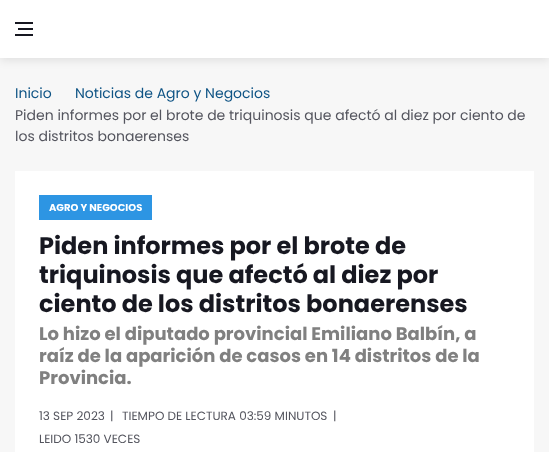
<!DOCTYPE html>
<meta charset="utf-8">
<style>body { margin: 0 } canvas { display: block }</style>
<canvas id="canvas" width="549" height="452"></canvas>
<script type="module">
  const canvas = document.getElementById("canvas");
  const ctx = canvas.getContext("2d");
  ctx.miterLimit = 4;
  ctx.fontKerning = "normal";

  ctx.fillStyle = "#f7f7f7";
  ctx.fillRect(0, 0, 549, 452);
  ctx.fillStyle = "rgba(0, 0, 0, 0.1)";
  ctx.filter = "blur(5px)";
  ctx.beginPath();
  ctx.rect(0, 2, 549, 58);
  ctx.fill();
  ctx.filter = "none";
  ctx.fillStyle = "#ffffff";
  ctx.fillRect(0, 0, 549, 58);
  ctx.fillStyle = "#171821";
  ctx.fillRect(18, 28, 15, 2);
  ctx.fillRect(15, 22, 18, 2);
  ctx.fillRect(15, 34, 18, 2);
  ctx.font = "14px Poppins";
  ctx.fillStyle = "#0f5485";
  ctx.fillText("Inicio", 15, 98);
  ctx.fillText("Noticias de Agro y Negocios", 75, 98);
  ctx.fillStyle = "#54555e";
  ctx.fillText("Piden informes por el brote de triquinosis que afectó al diez por ciento de", 15, 120);
  ctx.fillText("los distritos bonaerenses", 15, 141);
  ctx.fillStyle = "#ffffff";
  ctx.fillRect(15, 171, 519, 281);
  ctx.fillStyle = "#2d95e3";
  ctx.fillRect(39, 195, 113, 25);
  ctx.font = "bold 10px Poppins";
  ctx.fillStyle = "#ffffff";
  ctx.fillText("AGRO Y NEGOCIOS", 49, 211);
  ctx.font = "bold 24px Poppins";
  ctx.fillStyle = "#171821";
  ctx.fillText("Piden informes por el brote de", 39, 254);
  ctx.fillText("triquinosis que afectó al diez por", 39, 283);
  ctx.fillText("ciento de los distritos bonaerenses", 39, 312);
  ctx.font = "bold 18px Poppins";
  ctx.fillStyle = "#808080";
  ctx.fillText("Lo hizo el diputado provincial Emiliano Balbín, a", 39, 340);
  ctx.fillText("raíz de la aparición de casos en 14 distritos de la", 39, 362);
  ctx.fillText("Provincia.", 39, 384);
  ctx.font = "12px Poppins";
  ctx.fillStyle = "#54555e";
  ctx.fillText("13 SEP 2023", 39, 420);
  ctx.fillText("|", 110, 420);
  ctx.fillText("TIEMPO DE LECTURA 03:59 MINUTOS", 122, 420);
  ctx.fillText("|", 333, 420);
  ctx.fillText("LEIDO 1530 VECES", 39, 443);
</script>
